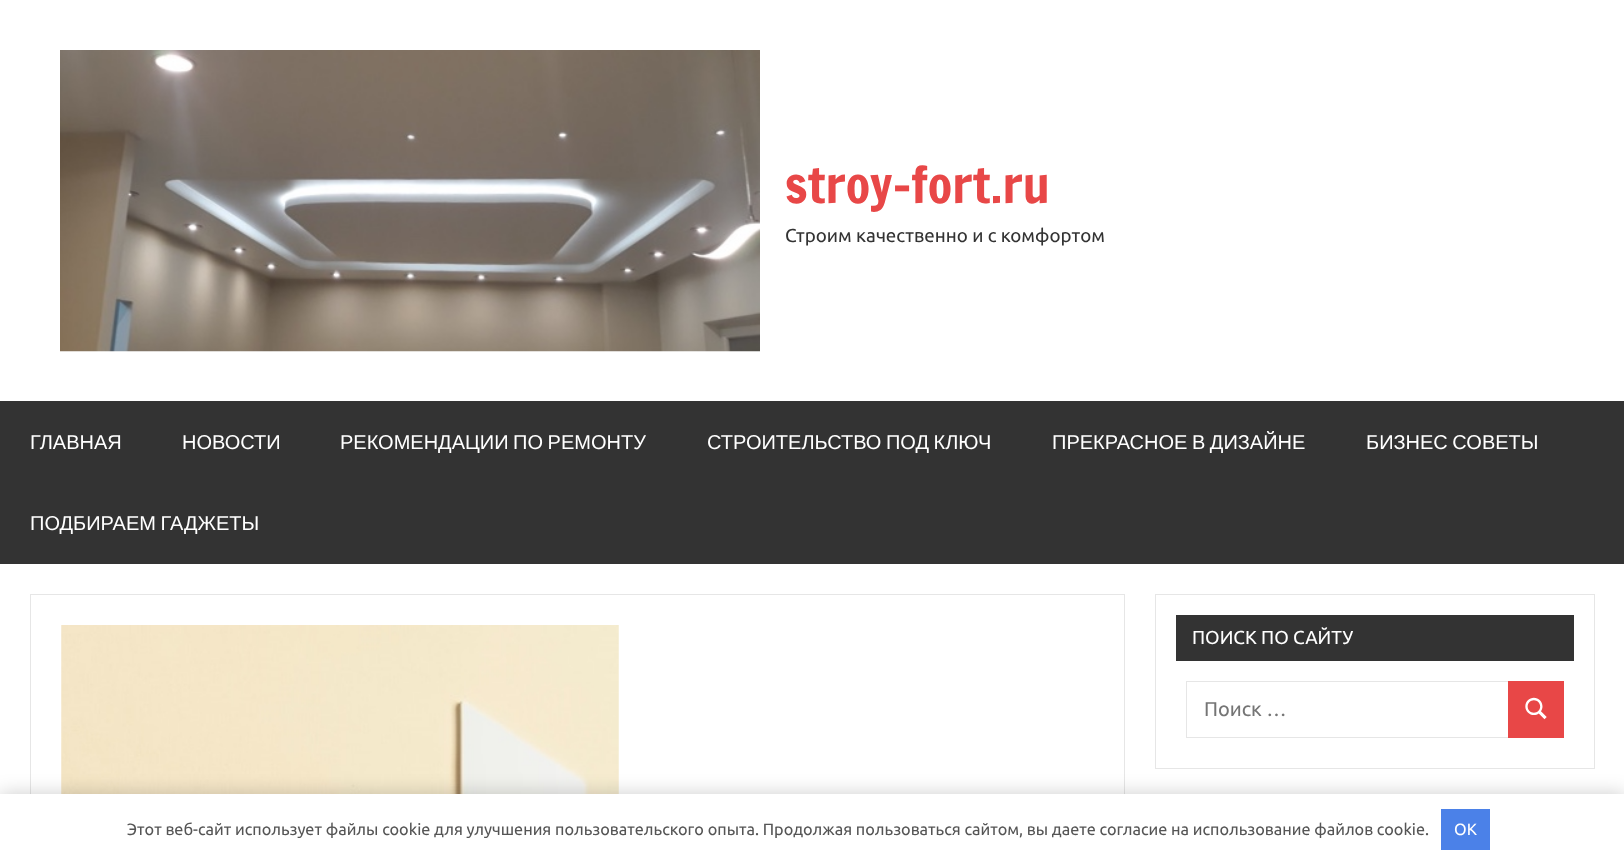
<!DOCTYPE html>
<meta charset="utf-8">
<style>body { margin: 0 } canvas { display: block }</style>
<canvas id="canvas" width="1624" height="865"></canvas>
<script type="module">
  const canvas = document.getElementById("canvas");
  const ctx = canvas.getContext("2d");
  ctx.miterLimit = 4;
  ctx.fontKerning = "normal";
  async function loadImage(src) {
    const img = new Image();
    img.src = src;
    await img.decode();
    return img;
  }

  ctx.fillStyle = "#ffffff";
  ctx.fillRect(0, 0, 1624, 865);
  ctx.drawImage(await loadImage("img1.png"), 60, 50, 700, 302);
  ctx.font = "50px Francois One";
  ctx.fillStyle = "#e84747";
  ctx.fillText("stroy-fort.ru", 785, 203);
  ctx.font = "18.75px Ubuntu";
  ctx.fillStyle = "#333333";
  ctx.fillText("Строим качественно и с комфортом", 785, 242);
  ctx.fillRect(0, 401, 1624, 163);
  ctx.font = "20px Liberation Sans";
  ctx.fillStyle = "#ffffff";
  ctx.fillText("ГЛАВНАЯ", 30, 449);
  ctx.fillText("НОВОСТИ", 182, 449);
  ctx.wordSpacing = "-1px";
  ctx.fillText("РЕКОМЕНДАЦИИ ПО РЕМОНТУ", 340, 449);
  ctx.fillText("СТРОИТЕЛЬСТВО ПОД КЛЮЧ", 707, 449);
  ctx.fillText("ПРЕКРАСНОЕ В ДИЗАЙНЕ", 1052, 449);
  ctx.fillText("БИЗНЕС СОВЕТЫ", 1366, 449);
  ctx.fillText("ПОДБИРАЕМ ГАДЖЕТЫ", 30, 530);
  ctx.strokeStyle = "#e6e6e6";
  ctx.strokeRect(30.5, 594.5, 1094, 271);
  ctx.drawImage(await loadImage("img2.png"), 61, 625, 558, 169);
  ctx.strokeRect(1155.5, 594.5, 439, 174);
  ctx.fillStyle = "#333333";
  ctx.fillRect(1176, 615, 398, 46);
  ctx.wordSpacing = "0px";
  ctx.font = "18.75px Ubuntu";
  ctx.fillStyle = "#ffffff";
  ctx.fillText("ПОИСК ПО САЙТУ", 1192, 644);
  ctx.strokeRect(1186.5, 681.5, 322, 56);
  ctx.font = "20px Ubuntu";
  ctx.fillStyle = "#757575";
  ctx.fillText("Поиск …", 1204, 716);
  ctx.fillStyle = "#e84747";
  ctx.fillRect(1508, 681, 56, 57);
  ctx.drawImage(await loadImage("img3.png"), 1525, 697, 22, 23);
  ctx.fillStyle = "rgba(0, 0, 0, 0.2)";
  ctx.filter = "blur(9.5px)";
  ctx.beginPath();
  ctx.rect(0, 794, 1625, 71);
  ctx.fill();
  ctx.filter = "none";
  ctx.fillStyle = "#ffffff";
  ctx.fillRect(0, 794, 1624, 71);
  ctx.font = "16.25px Ubuntu";
  ctx.fillStyle = "#555555";
  ctx.fillText("Этот веб-сайт использует файлы cookie для улучшения пользовательского опыта. Продолжая пользоваться сайтом, вы даете согласие на использование файлов cookie.", 127, 835);
  ctx.fillStyle = "#4b81e8";
  ctx.fillRect(1441, 809, 49, 41);
  ctx.fillStyle = "#ffffff";
  ctx.fillText("OK", 1454, 835);
</script>
